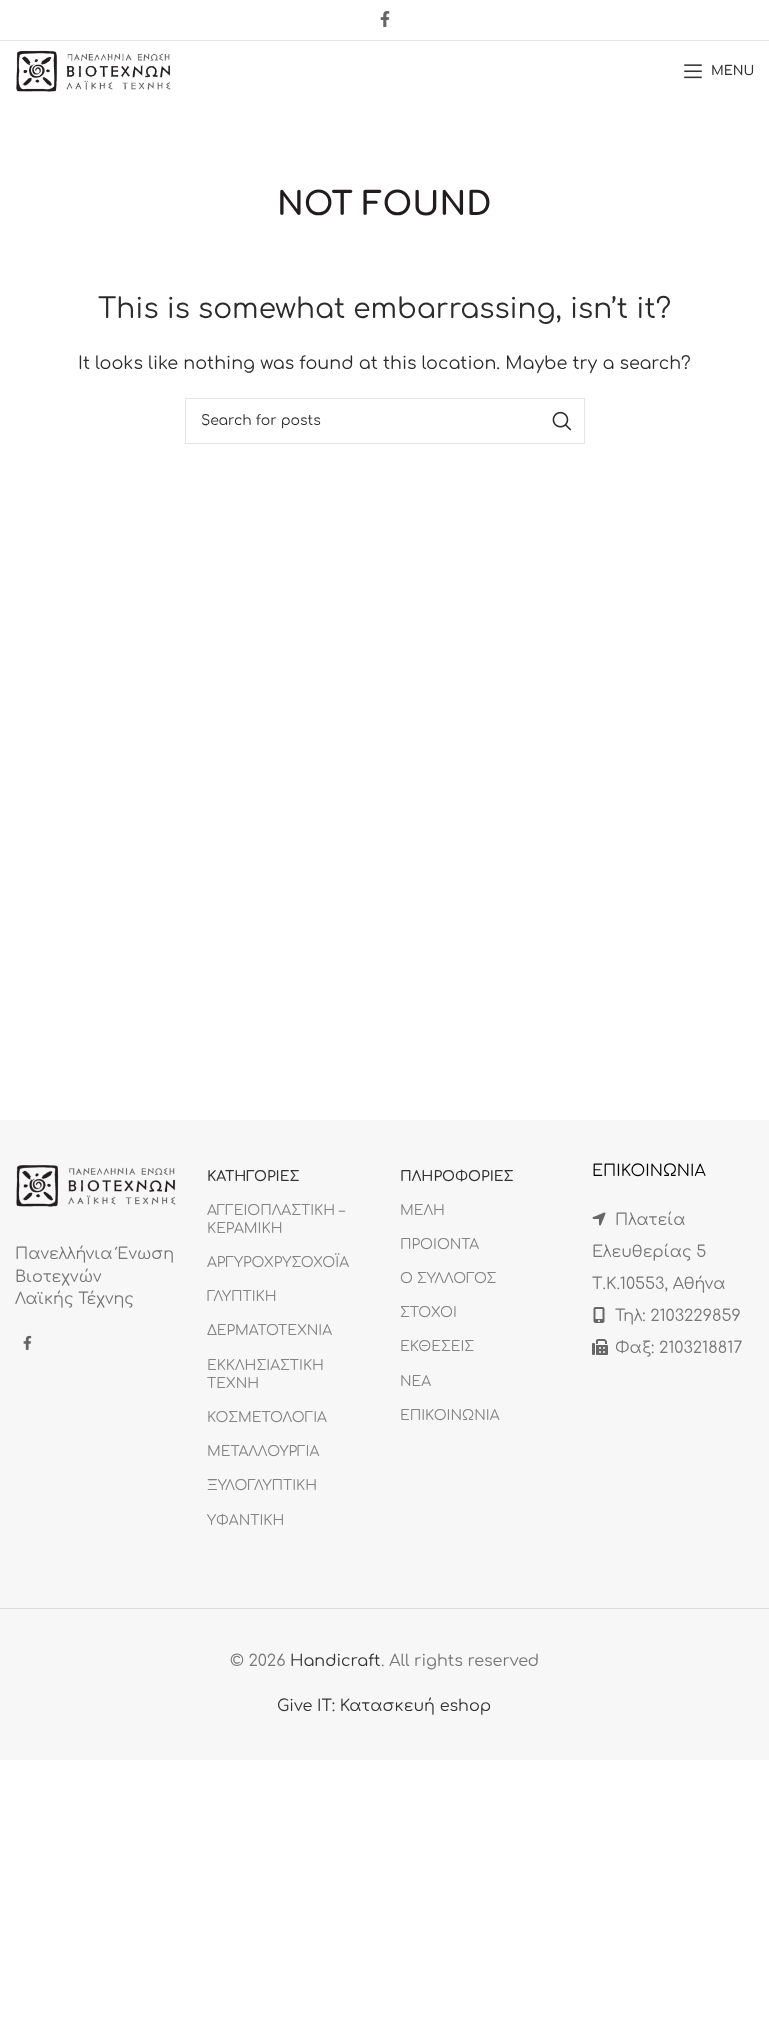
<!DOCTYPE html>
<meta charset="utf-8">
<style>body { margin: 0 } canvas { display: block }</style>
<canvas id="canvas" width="769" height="2037"></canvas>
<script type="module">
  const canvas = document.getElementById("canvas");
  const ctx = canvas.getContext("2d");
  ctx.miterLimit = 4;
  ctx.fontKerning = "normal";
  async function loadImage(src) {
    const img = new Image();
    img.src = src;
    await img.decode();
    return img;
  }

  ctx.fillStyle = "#ffffff";
  ctx.fillRect(0, 0, 769, 2037);
  ctx.fillStyle = "#e6e6e4";
  ctx.fillRect(0, 40, 769, 1);
  ctx.drawImage(await loadImage("img1.png"), 380, 11, 10, 16);
  ctx.drawImage(await loadImage("img2.png"), 16, 50, 155, 42);
  ctx.drawImage(await loadImage("img3.png"), 684, 64, 18, 15);
  ctx.font = "600 13px Comfortaa";
  ctx.fillStyle = "#333333";
  ctx.fillText("MENU", 711, 75);
  ctx.font = "bold 32.25px Comfortaa";
  ctx.fillStyle = "#211d1e";
  ctx.fillText("NOT FOUND", 277, 215);
  ctx.font = "28px Comfortaa";
  ctx.fillStyle = "#2b2b2b";
  ctx.fillText("This is somewhat embarrassing, isn’t it?", 98, 318);
  ctx.font = "17.6px Comfortaa";
  ctx.fillText("It looks like nothing was found at this location. Maybe try a search?", 78, 369);
  ctx.strokeStyle = "#e6e6e6";
  ctx.strokeRect(185.5, 398.5, 399, 45);
  ctx.font = "14px Comfortaa";
  ctx.fillText("Search for posts", 201, 425);
  ctx.drawImage(await loadImage("img4.png"), 552, 411, 20, 20);
  ctx.fillStyle = "#f7f7f7";
  ctx.fillRect(0, 1120, 769, 640);
  ctx.drawImage(await loadImage("img5.png"), 16, 1165, 160, 42);
  ctx.font = "16px Comfortaa";
  ctx.fillStyle = "#767676";
  ctx.fillText("Πανελλήνια Ένωση", 15, 1259);
  ctx.fillText("Βιοτεχνών", 15, 1282);
  ctx.fillText("Λαϊκής Τέχνης", 15, 1304);
  ctx.drawImage(await loadImage("img6.png"), 23, 1335, 9, 15);
  ctx.font = "600 14px Comfortaa";
  ctx.fillStyle = "#333333";
  ctx.fillText("ΚΑΤΗΓΟΡΙΕΣ", 207, 1181);
  ctx.font = "14px Comfortaa";
  ctx.fillStyle = "#838383";
  ctx.fillText("ΑΓΓΕΙΟΠΛΑΣΤΙΚΗ –", 207, 1215);
  ctx.fillText("ΚΕΡΑΜΙΚΗ", 207, 1233);
  ctx.fillText("ΑΡΓΥΡΟΧΡΥΣΟΧΟΪΑ", 207, 1267);
  ctx.fillText("ΓΛΥΠΤΙΚΗ", 207, 1301);
  ctx.fillText("ΔΕΡΜΑΤΟΤΕΧΝΙΑ", 207, 1335);
  ctx.fillText("ΕΚΚΛΗΣΙΑΣΤΙΚΗ", 207, 1370);
  ctx.fillText("ΤΕΧΝΗ", 207, 1388);
  ctx.fillText("ΚΟΣΜΕΤΟΛΟΓΙΑ", 207, 1422);
  ctx.fillText("ΜΕΤΑΛΛΟΥΡΓΙΑ", 207, 1456);
  ctx.fillText("ΞΥΛΟΓΛΥΠΤΙΚΗ", 207, 1490);
  ctx.fillText("ΥΦΑΝΤΙΚΗ", 207, 1525);
  ctx.font = "600 14px Comfortaa";
  ctx.fillStyle = "#333333";
  ctx.fillText("ΠΛΗΡΟΦΟΡΙΕΣ", 400, 1181);
  ctx.font = "14px Comfortaa";
  ctx.fillStyle = "#838383";
  ctx.fillText("ΜΕΛΗ", 400, 1215);
  ctx.fillText("ΠΡΟΙΟΝΤΑ", 400, 1249);
  ctx.fillText("Ο ΣΥΛΛΟΓΟΣ", 400, 1283);
  ctx.fillText("ΣΤΟΧΟΙ", 400, 1317);
  ctx.fillText("ΕΚΘΕΣΕΙΣ", 400, 1351);
  ctx.fillText("ΝΕΑ", 400, 1386);
  ctx.fillText("ΕΠΙΚΟΙΝΩΝΙΑ", 400, 1420);
  ctx.font = "16px Comfortaa";
  ctx.fillStyle = "#000000";
  ctx.fillText("ΕΠΙΚΟΙΝΩΝΙΑ", 592, 1176);
  ctx.drawImage(await loadImage("img7.png"), 592, 1212, 14, 14);
  ctx.fillStyle = "#767676";
  ctx.fillText("Πλατεία", 615, 1225);
  ctx.fillText("Ελευθερίας 5", 592, 1257);
  ctx.fillText("Τ.Κ.10553, Αθήνα", 592, 1289);
  ctx.drawImage(await loadImage("img8.png"), 593, 1307, 12, 16);
  ctx.fillText("Τηλ: 2103229859", 615, 1321);
  ctx.drawImage(await loadImage("img9.png"), 592, 1339, 16, 16);
  ctx.fillText("Φαξ: 2103218817", 615, 1353);
  ctx.fillStyle = "#dddddd";
  ctx.fillRect(0, 1608, 769, 1);
  ctx.fillStyle = "#767676";
  ctx.fillText("© 2026", 230, 1666);
  ctx.fillStyle = "#333333";
  ctx.fillText("Handicraft", 290, 1666);
  ctx.fillStyle = "#767676";
  ctx.fillText(". All rights reserved", 381, 1666);
  ctx.fillStyle = "#333333";
  ctx.fillText("Give IT: Κατασκευή eshop", 277, 1711);
</script>
